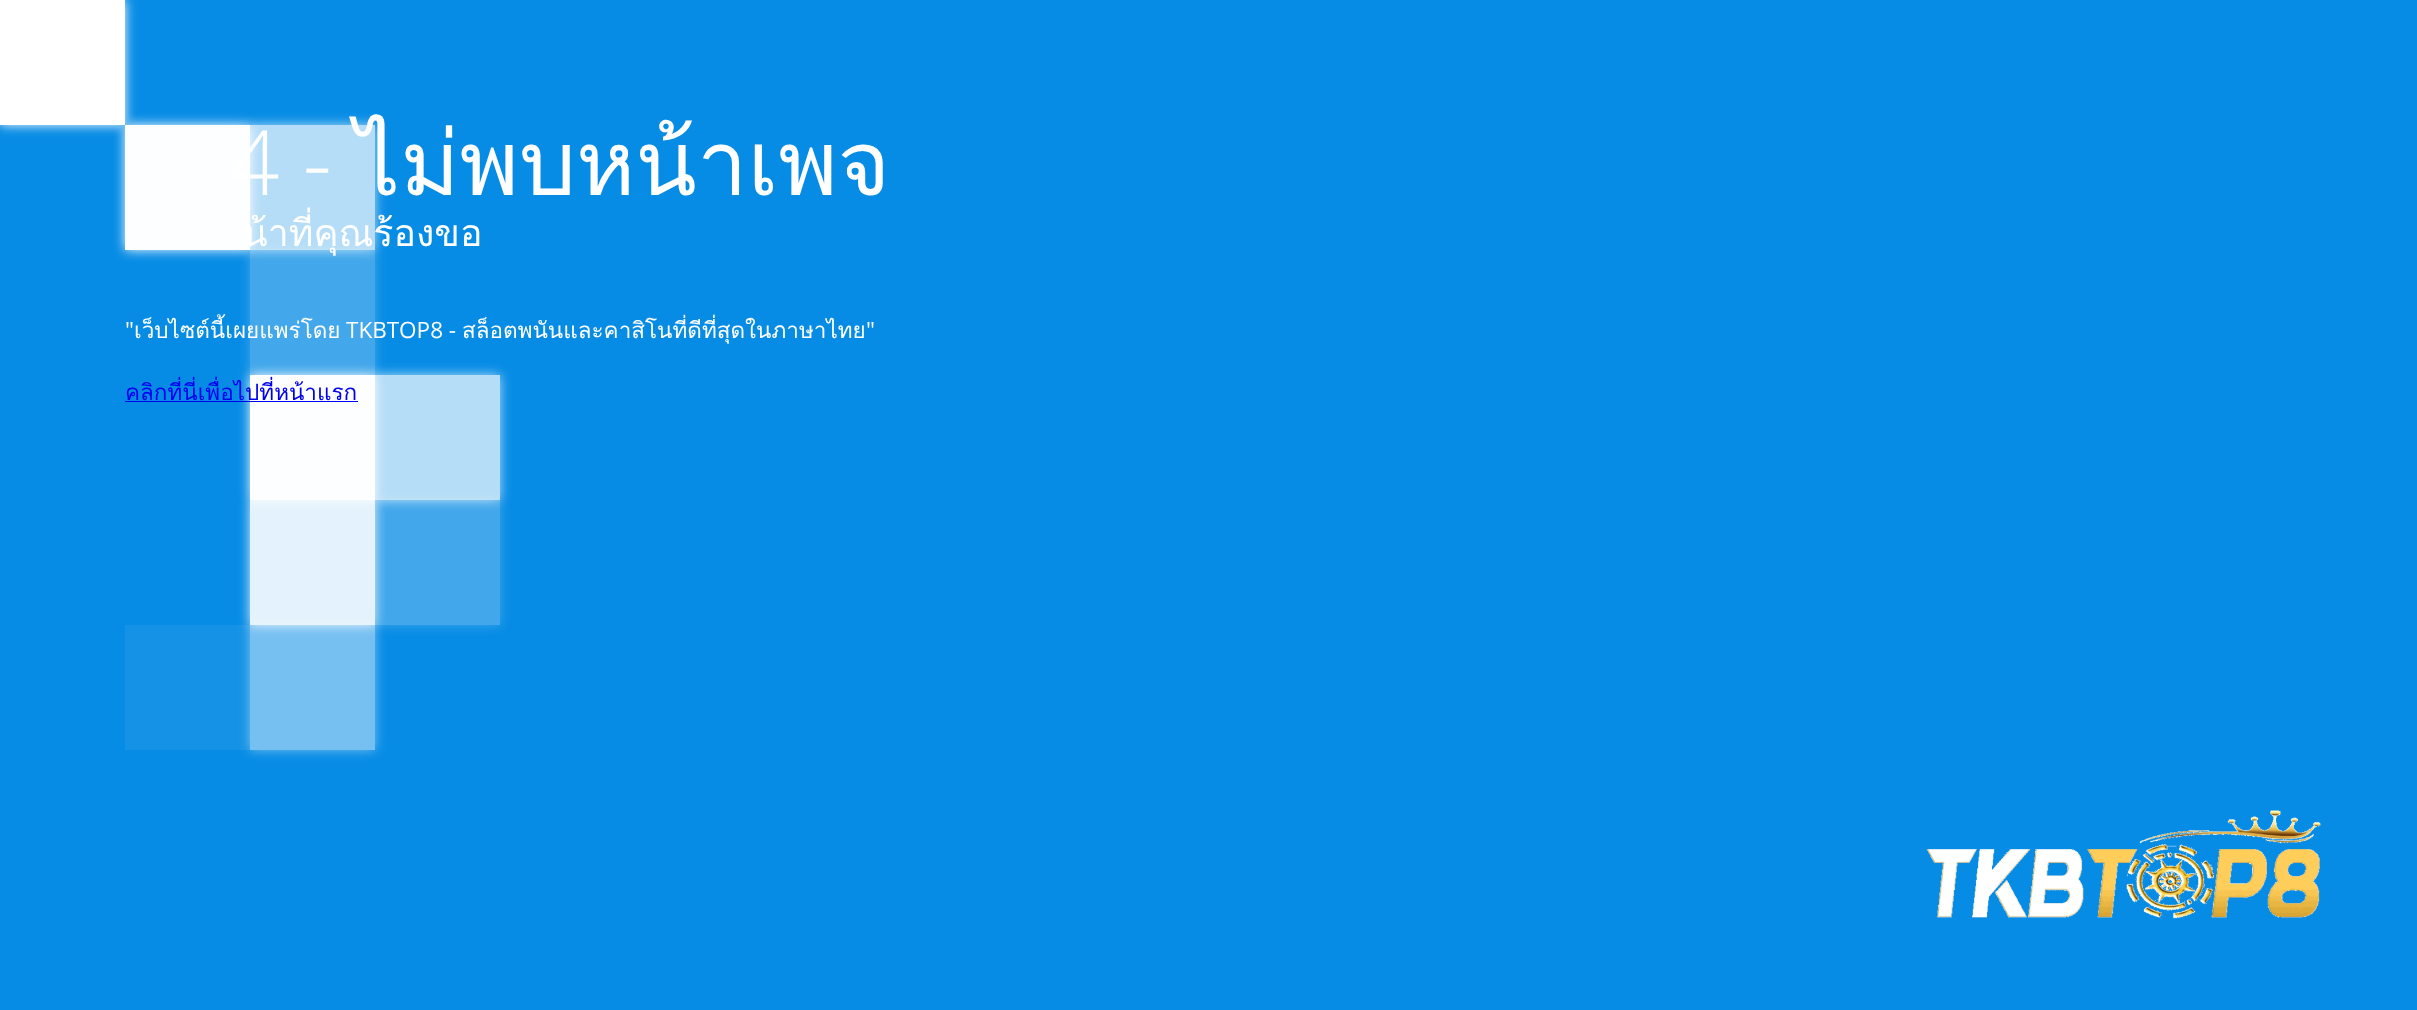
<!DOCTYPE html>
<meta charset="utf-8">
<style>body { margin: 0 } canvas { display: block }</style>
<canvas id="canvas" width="2417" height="1010"></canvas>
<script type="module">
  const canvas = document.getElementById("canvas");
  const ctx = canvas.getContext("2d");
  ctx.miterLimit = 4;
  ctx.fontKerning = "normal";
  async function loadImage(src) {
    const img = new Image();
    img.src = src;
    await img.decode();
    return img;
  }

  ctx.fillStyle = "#078ce5";
  ctx.fillRect(0, 0, 2417, 1010);
  ctx.fillStyle = "#ffffff";
  ctx.filter = "blur(6px)";
  ctx.beginPath();
  ctx.rect(0, 0, 125, 125);
  ctx.fill();
  ctx.filter = "none";
  ctx.fillRect(0, 0, 125, 125);
  ctx.save();
  ctx.beginPath();
  ctx.moveTo(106, 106);
  ctx.lineTo(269, 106);
  ctx.lineTo(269, 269);
  ctx.lineTo(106, 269);
  ctx.closePath();
  ctx.moveTo(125, 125);
  ctx.lineTo(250, 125);
  ctx.lineTo(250, 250);
  ctx.lineTo(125, 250);
  ctx.closePath();
  ctx.clip("evenodd");
  ctx.fillStyle = "rgba(255, 255, 255, 0.99)";
  ctx.filter = "blur(6px)";
  ctx.beginPath();
  ctx.rect(125, 125, 125, 125);
  ctx.fill();
  ctx.filter = "none";
  ctx.restore();
  ctx.fillStyle = "rgba(255, 255, 255, 0.99)";
  ctx.fillRect(125, 125, 125, 125);
  ctx.save();
  ctx.beginPath();
  ctx.moveTo(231, 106);
  ctx.lineTo(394, 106);
  ctx.lineTo(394, 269);
  ctx.lineTo(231, 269);
  ctx.closePath();
  ctx.moveTo(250, 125);
  ctx.lineTo(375, 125);
  ctx.lineTo(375, 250);
  ctx.lineTo(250, 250);
  ctx.closePath();
  ctx.clip("evenodd");
  ctx.fillStyle = "rgba(255, 255, 255, 0.7)";
  ctx.filter = "blur(6px)";
  ctx.beginPath();
  ctx.rect(250, 125, 125, 125);
  ctx.fill();
  ctx.filter = "none";
  ctx.restore();
  ctx.fillStyle = "rgba(255, 255, 255, 0.7)";
  ctx.fillRect(250, 125, 125, 125);
  ctx.font = "300 90px Open Sans";
  ctx.fillStyle = "#ffffff";
  ctx.fillText("4 -", 228, 195);
  ctx.font = "90px Loma";
  ctx.fillText("ไม่พบหน้าเพจ", 355, 195);
  ctx.save();
  ctx.beginPath();
  ctx.moveTo(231, 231);
  ctx.lineTo(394, 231);
  ctx.lineTo(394, 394);
  ctx.lineTo(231, 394);
  ctx.closePath();
  ctx.moveTo(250, 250);
  ctx.lineTo(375, 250);
  ctx.lineTo(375, 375);
  ctx.lineTo(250, 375);
  ctx.closePath();
  ctx.clip("evenodd");
  ctx.fillStyle = "rgba(255, 255, 255, 0.24)";
  ctx.filter = "blur(6px)";
  ctx.beginPath();
  ctx.rect(250, 250, 125, 125);
  ctx.fill();
  ctx.filter = "none";
  ctx.restore();
  ctx.fillStyle = "rgba(255, 255, 255, 0.24)";
  ctx.fillRect(250, 250, 125, 125);
  ctx.font = "37.5px Loma";
  ctx.fillStyle = "#ffffff";
  ctx.fillText("น้าที่คุณร้องขอ", 242, 246);
  ctx.font = "22.5px Open Sans";
  ctx.fillText("\"", 125, 338);
  ctx.font = "22.5px Loma";
  ctx.fillText("เว็บไซต์นี้เผยแพร่โดย", 134, 338);
  ctx.font = "22.5px Open Sans";
  ctx.fillText("TKBTOP8 -", 346, 338);
  ctx.font = "22.5px Loma";
  ctx.fillText("สล็อตพนันและคาสิโนที่ดีที่สุดในภาษาไทย", 462, 338);
  ctx.font = "22.5px Open Sans";
  ctx.fillText("\"", 866, 338);
  ctx.save();
  ctx.beginPath();
  ctx.moveTo(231, 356);
  ctx.lineTo(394, 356);
  ctx.lineTo(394, 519);
  ctx.lineTo(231, 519);
  ctx.closePath();
  ctx.moveTo(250, 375);
  ctx.lineTo(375, 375);
  ctx.lineTo(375, 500);
  ctx.lineTo(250, 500);
  ctx.closePath();
  ctx.clip("evenodd");
  ctx.fillStyle = "rgba(255, 255, 255, 0.99)";
  ctx.filter = "blur(6px)";
  ctx.beginPath();
  ctx.rect(250, 375, 125, 125);
  ctx.fill();
  ctx.filter = "none";
  ctx.restore();
  ctx.fillStyle = "rgba(255, 255, 255, 0.99)";
  ctx.fillRect(250, 375, 125, 125);
  ctx.font = "22.5px Loma";
  ctx.fillStyle = "#0000ee";
  ctx.fillText("คลิกที่นี่เพื่อไปที่หน้าแรก", 125, 400);
  ctx.save();
  ctx.beginPath();
  ctx.moveTo(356, 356);
  ctx.lineTo(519, 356);
  ctx.lineTo(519, 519);
  ctx.lineTo(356, 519);
  ctx.closePath();
  ctx.moveTo(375, 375);
  ctx.lineTo(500, 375);
  ctx.lineTo(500, 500);
  ctx.lineTo(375, 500);
  ctx.closePath();
  ctx.clip("evenodd");
  ctx.fillStyle = "rgba(255, 255, 255, 0.7)";
  ctx.filter = "blur(6px)";
  ctx.beginPath();
  ctx.rect(375, 375, 125, 125);
  ctx.fill();
  ctx.filter = "none";
  ctx.restore();
  ctx.fillRect(125, 401, 233, 1);
  ctx.drawImage(await loadImage("img1.png"), 1926, 810, 395, 109);
  ctx.fillStyle = "rgba(255, 255, 255, 0.7)";
  ctx.fillRect(375, 375, 125, 125);
  ctx.save();
  ctx.beginPath();
  ctx.moveTo(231, 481);
  ctx.lineTo(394, 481);
  ctx.lineTo(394, 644);
  ctx.lineTo(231, 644);
  ctx.closePath();
  ctx.moveTo(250, 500);
  ctx.lineTo(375, 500);
  ctx.lineTo(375, 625);
  ctx.lineTo(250, 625);
  ctx.closePath();
  ctx.clip("evenodd");
  ctx.fillStyle = "rgba(255, 255, 255, 0.89)";
  ctx.filter = "blur(6px)";
  ctx.beginPath();
  ctx.rect(250, 500, 125, 125);
  ctx.fill();
  ctx.filter = "none";
  ctx.restore();
  ctx.fillStyle = "rgba(255, 255, 255, 0.89)";
  ctx.fillRect(250, 500, 125, 125);
  ctx.save();
  ctx.beginPath();
  ctx.moveTo(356, 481);
  ctx.lineTo(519, 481);
  ctx.lineTo(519, 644);
  ctx.lineTo(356, 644);
  ctx.closePath();
  ctx.moveTo(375, 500);
  ctx.lineTo(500, 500);
  ctx.lineTo(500, 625);
  ctx.lineTo(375, 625);
  ctx.closePath();
  ctx.clip("evenodd");
  ctx.fillStyle = "rgba(255, 255, 255, 0.24)";
  ctx.filter = "blur(6px)";
  ctx.beginPath();
  ctx.rect(375, 500, 125, 125);
  ctx.fill();
  ctx.filter = "none";
  ctx.restore();
  ctx.fillStyle = "rgba(255, 255, 255, 0.24)";
  ctx.fillRect(375, 500, 125, 125);
  ctx.fillStyle = "rgba(255, 255, 255, 0.06)";
  ctx.fillRect(125, 625, 125, 125);
  ctx.save();
  ctx.beginPath();
  ctx.moveTo(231, 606);
  ctx.lineTo(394, 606);
  ctx.lineTo(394, 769);
  ctx.lineTo(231, 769);
  ctx.closePath();
  ctx.moveTo(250, 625);
  ctx.lineTo(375, 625);
  ctx.lineTo(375, 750);
  ctx.lineTo(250, 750);
  ctx.closePath();
  ctx.clip("evenodd");
  ctx.fillStyle = "rgba(255, 255, 255, 0.45)";
  ctx.filter = "blur(6px)";
  ctx.beginPath();
  ctx.rect(250, 625, 125, 125);
  ctx.fill();
  ctx.filter = "none";
  ctx.restore();
  ctx.fillStyle = "rgba(255, 255, 255, 0.45)";
  ctx.fillRect(250, 625, 125, 125);
</script>
